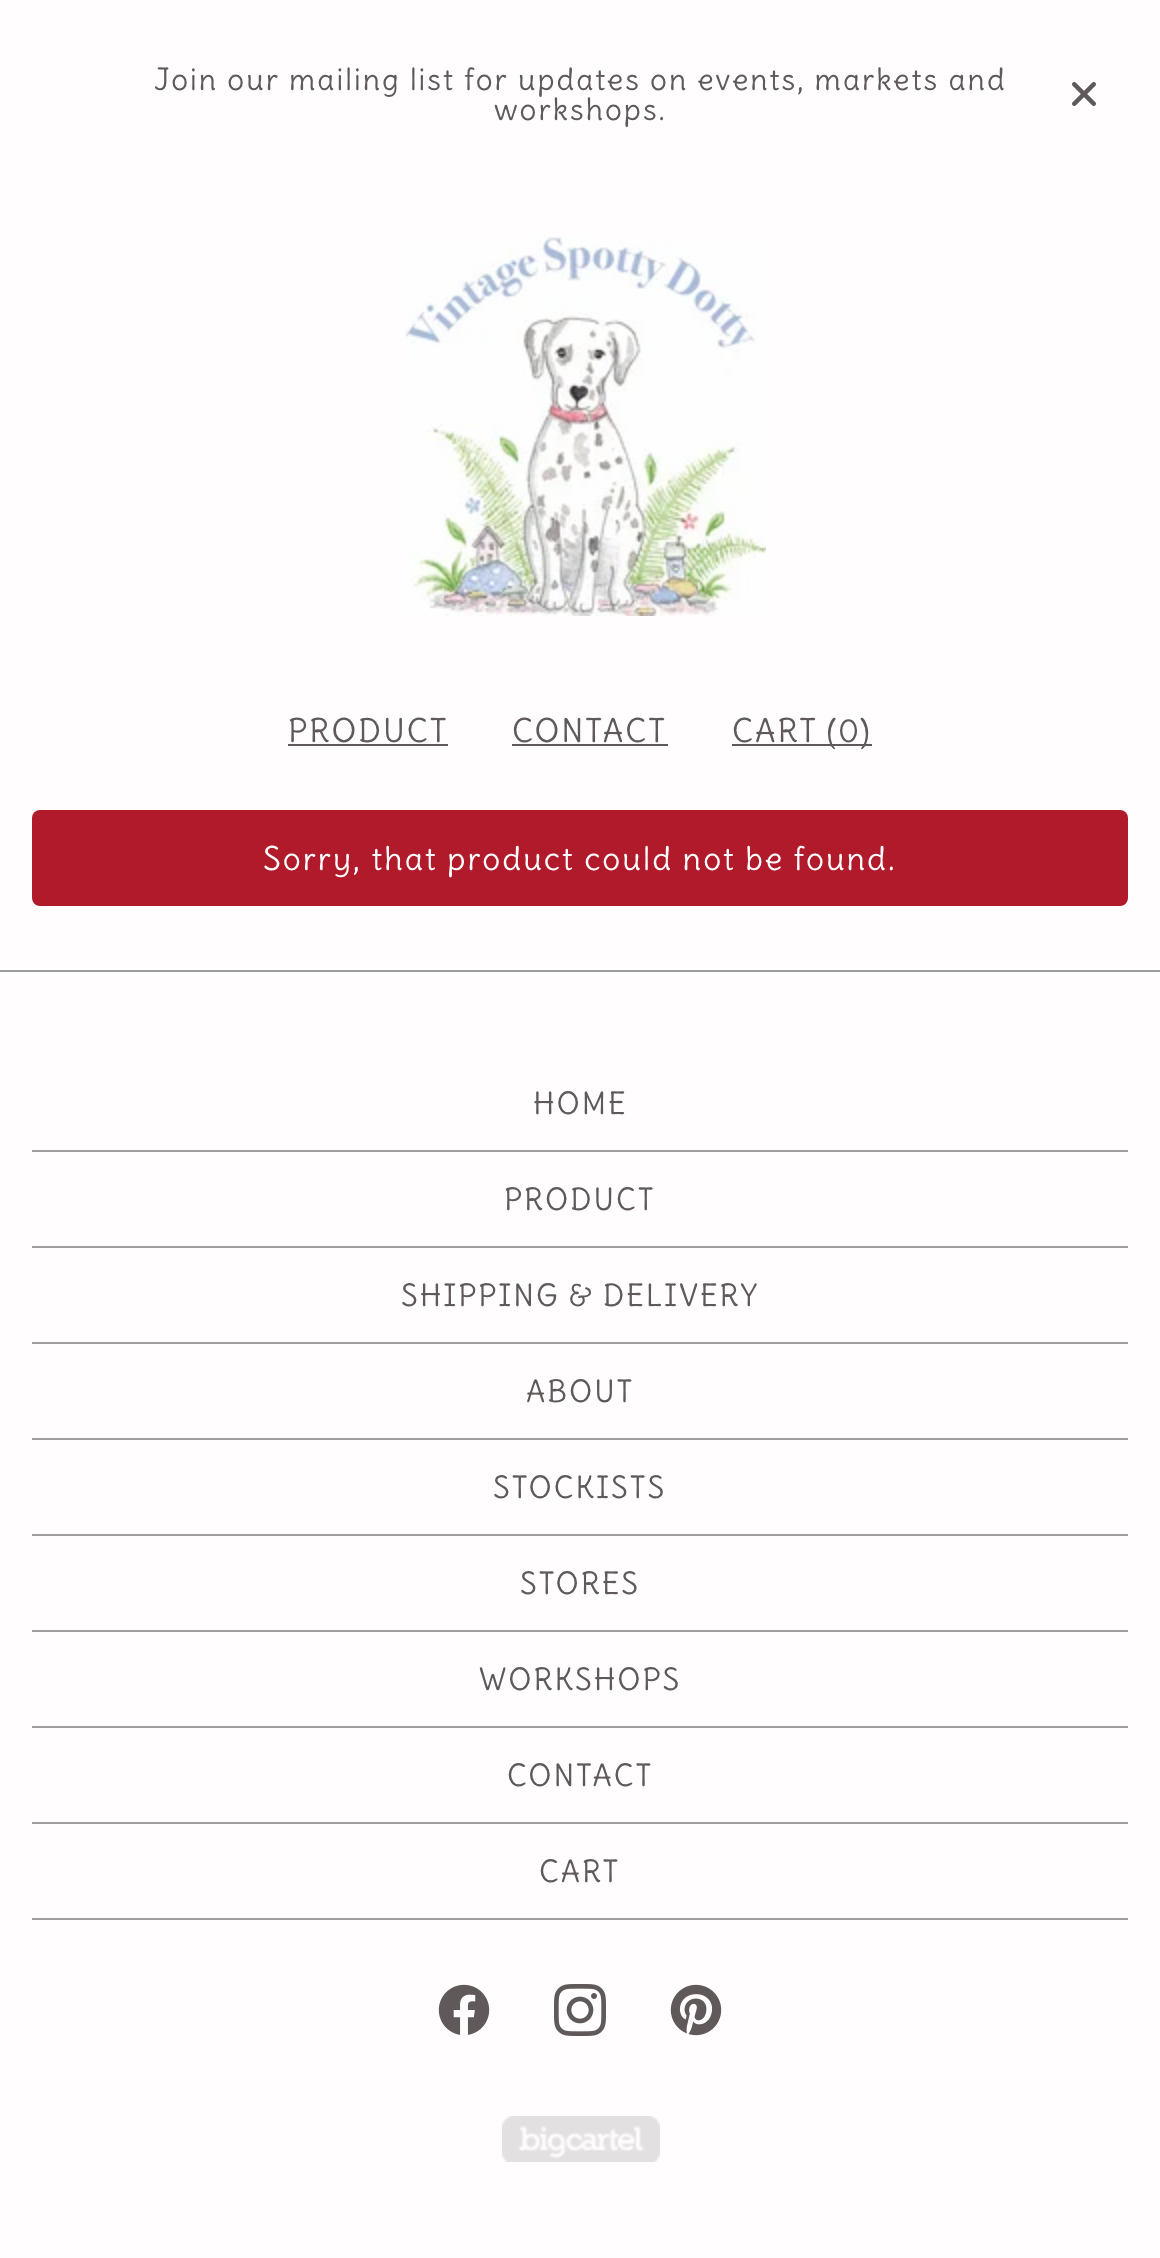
<!DOCTYPE html>
<meta charset="utf-8">
<style>body { margin: 0 } canvas { display: block }</style>
<canvas id="canvas" width="1160" height="2258"></canvas>
<script type="module">
  const canvas = document.getElementById("canvas");
  const ctx = canvas.getContext("2d");
  ctx.miterLimit = 4;
  ctx.fontKerning = "normal";
  async function loadImage(src) {
    const img = new Image();
    img.src = src;
    await img.decode();
    return img;
  }

  ctx.fillStyle = "#fffdfd";
  ctx.fillRect(0, 0, 1160, 2258);
  ctx.letterSpacing = "2px";
  ctx.font = "30px Delius";
  ctx.fillStyle = "#5f5959";
  ctx.fillText("Join our mailing list for updates on events, markets and", 154, 90);
  ctx.fillText("workshops.", 494, 120);
  ctx.drawImage(await loadImage("img1.png"), 1072, 82, 24, 24);
  ctx.drawImage(await loadImage("img2.png"), 405, 236, 361, 380);
  ctx.font = "32px Delius";
  ctx.fillText("PRODUCT", 288, 742);
  ctx.fillRect(288, 744, 160, 2);
  ctx.fillText("CONTACT", 512, 742);
  ctx.fillRect(512, 744, 156, 2);
  ctx.fillRect(732, 744, 140, 2);
  ctx.wordSpacing = "-1px";
  ctx.fillText("CART (", 732, 742);
  ctx.wordSpacing = "0px";
  ctx.fillText("0", 838, 742);
  ctx.fillText(")", 860, 742);
  ctx.fillStyle = "#9f9d9d";
  ctx.fillRect(0, 970, 1160, 2);
  ctx.fillStyle = "#b11a2a";
  ctx.beginPath();
  ctx.roundRect(32, 810, 1096, 96, 8);
  ctx.fill();
  ctx.fillStyle = "#ffffff";
  ctx.fillText("Sorry, that product could not be found.", 263, 870);
  ctx.fillStyle = "#9f9d9d";
  ctx.fillRect(32, 1150, 1096, 2);
  ctx.font = "30px Delius";
  ctx.fillStyle = "#5f5959";
  ctx.fillText("HOME", 533, 1114);
  ctx.fillStyle = "#9f9d9d";
  ctx.fillRect(32, 1246, 1096, 2);
  ctx.fillStyle = "#5f5959";
  ctx.fillText("PRODUCT", 504, 1210);
  ctx.fillStyle = "#9f9d9d";
  ctx.fillRect(32, 1342, 1096, 2);
  ctx.fillStyle = "#5f5959";
  ctx.fillText("SHIPPING & DELIVERY", 401, 1306);
  ctx.fillStyle = "#9f9d9d";
  ctx.fillRect(32, 1438, 1096, 2);
  ctx.fillStyle = "#5f5959";
  ctx.fillText("ABOUT", 526, 1402);
  ctx.fillStyle = "#9f9d9d";
  ctx.fillRect(32, 1534, 1096, 2);
  ctx.fillStyle = "#5f5959";
  ctx.fillText("STOCKISTS", 493, 1498);
  ctx.fillStyle = "#9f9d9d";
  ctx.fillRect(32, 1630, 1096, 2);
  ctx.fillStyle = "#5f5959";
  ctx.fillText("STORES", 520, 1594);
  ctx.fillStyle = "#9f9d9d";
  ctx.fillRect(32, 1726, 1096, 2);
  ctx.fillStyle = "#5f5959";
  ctx.fillText("WORKSHOPS", 479, 1690);
  ctx.fillStyle = "#9f9d9d";
  ctx.fillRect(32, 1822, 1096, 2);
  ctx.fillStyle = "#5f5959";
  ctx.fillText("CONTACT", 507, 1786);
  ctx.fillStyle = "#9f9d9d";
  ctx.fillRect(32, 1918, 1096, 2);
  ctx.fillStyle = "#5f5959";
  ctx.fillText("CART", 539, 1882);
  ctx.drawImage(await loadImage("img3.png"), 438, 1984, 52, 51);
  ctx.drawImage(await loadImage("img4.png"), 554, 1984, 52, 52);
  ctx.drawImage(await loadImage("img5.png"), 670, 1984, 52, 52);
  ctx.drawImage(await loadImage("img6.png"), 502, 2116, 158, 46);
</script>
